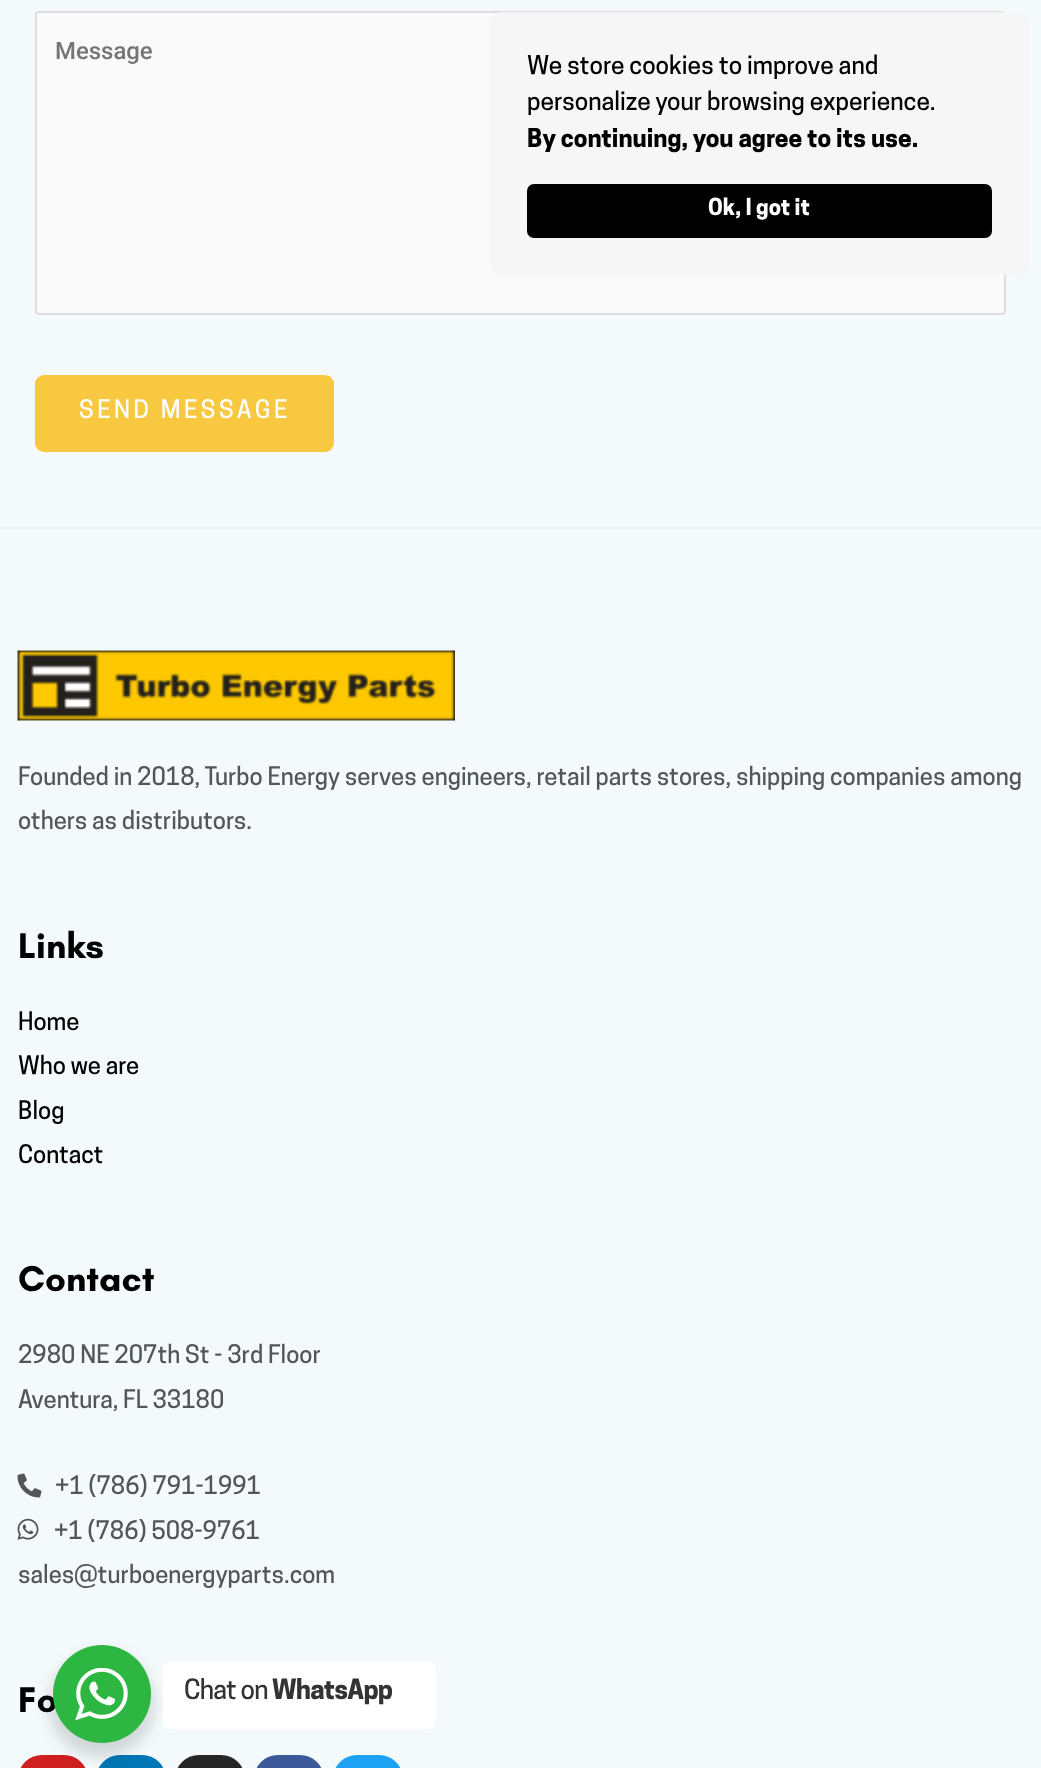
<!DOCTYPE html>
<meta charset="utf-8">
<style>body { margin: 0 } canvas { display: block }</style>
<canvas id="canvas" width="1041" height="1768"></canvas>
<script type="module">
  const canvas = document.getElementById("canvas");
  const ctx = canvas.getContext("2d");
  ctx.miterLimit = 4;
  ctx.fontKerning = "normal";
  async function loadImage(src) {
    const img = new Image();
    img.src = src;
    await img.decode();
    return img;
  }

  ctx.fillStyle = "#f4fafc";
  ctx.fillRect(0, 0, 1041, 1768);
  ctx.fillStyle = "#fafafa";
  ctx.beginPath();
  ctx.roundRect(36, 12, 969, 302, 3);
  ctx.fill();
  ctx.strokeStyle = "#dddddd";
  ctx.lineWidth = 2;
  ctx.stroke();
  ctx.font = "500 23.95px Roboto";
  ctx.fillStyle = "#757575";
  ctx.fillText("Message", 55, 59);
  ctx.fillStyle = "#f7c840";
  ctx.beginPath();
  ctx.roundRect(35, 375, 299, 77, 9);
  ctx.fill();
  ctx.letterSpacing = "3.5px";
  ctx.font = "500 23.95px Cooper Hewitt";
  ctx.fillStyle = "#ffffff";
  ctx.fillText("SEND MESSAGE", 79, 418);
  ctx.fillStyle = "#eaf0f2";
  ctx.fillRect(0, 527, 1041, 2);
  ctx.drawImage(await loadImage("img1.png"), 17, 650, 438, 71);
  ctx.letterSpacing = "0px";
  ctx.fillStyle = "#535556";
  ctx.fillText("Founded in 2018, Turbo Energy serves engineers, retail parts stores, shipping companies among", 18, 785);
  ctx.fillText("others as distributors.", 18, 829);
  ctx.font = "bold 36.5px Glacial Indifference";
  ctx.fillStyle = "#000000";
  ctx.fillText("Links", 18, 958);
  ctx.font = "500 23.95px Cooper Hewitt";
  ctx.fillText("Home", 18, 1030);
  ctx.fillText("Who we are", 18, 1074);
  ctx.fillText("Blog", 18, 1119);
  ctx.fillText("Contact", 18, 1163);
  ctx.font = "bold 36.5px Glacial Indifference";
  ctx.fillText("Contact", 18, 1291);
  ctx.font = "500 23.95px Cooper Hewitt";
  ctx.fillStyle = "#535556";
  ctx.fillText("2980 NE 207th St - 3rd Floor", 18, 1363);
  ctx.fillText("Aventura, FL 33180", 18, 1408);
  ctx.drawImage(await loadImage("img2.png"), 17, 1473, 25, 25);
  ctx.fillText("+1 (786) 791-1991", 55, 1494);
  ctx.drawImage(await loadImage("img3.png"), 17, 1518, 22, 22);
  ctx.fillText("+1 (786) 508-9761", 54, 1539);
  ctx.fillText("sales@turboenergyparts.com", 18, 1583);
  ctx.font = "bold 36.5px Glacial Indifference";
  ctx.fillStyle = "#000000";
  ctx.fillText("Fo", 18, 1712);
  ctx.fillStyle = "#cd201f";
  ctx.beginPath();
  ctx.roundRect(18, 1755, 70, 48, 35);
  ctx.fill();
  ctx.fillStyle = "#0077b5";
  ctx.beginPath();
  ctx.roundRect(96, 1755, 70, 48, 35);
  ctx.fill();
  ctx.fillStyle = "#262626";
  ctx.beginPath();
  ctx.roundRect(175, 1755, 70, 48, 35);
  ctx.fill();
  ctx.fillStyle = "#3b5998";
  ctx.beginPath();
  ctx.roundRect(254, 1755, 70, 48, 35);
  ctx.fill();
  ctx.fillStyle = "#1da1f2";
  ctx.beginPath();
  ctx.roundRect(333, 1755, 70, 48, 35);
  ctx.fill();
  ctx.fillStyle = "#f6f6f6";
  ctx.beginPath();
  ctx.roundRect(490, 12, 539, 263, 12);
  ctx.fill();
  ctx.font = "500 24.5px Cooper Hewitt";
  ctx.fillStyle = "#000000";
  ctx.fillText("We store cookies to improve and", 527, 74);
  ctx.fillText("personalize your browsing experience.", 527, 110);
  ctx.font = "bold 24.5px Cooper Hewitt";
  ctx.fillText("By continuing, you agree to its use.", 527, 147);
  ctx.beginPath();
  ctx.roundRect(527, 184, 465, 54, 7);
  ctx.fill();
  ctx.font = "bold 22px Cooper Hewitt";
  ctx.fillStyle = "#ffffff";
  ctx.fillText("Ok, I got it", 708, 215);
  ctx.fillStyle = "rgba(0, 0, 0, 0.14)";
  ctx.filter = "blur(7px)";
  ctx.beginPath();
  ctx.roundRect(49, 1652, 105, 105, 52.5);
  ctx.fill();
  ctx.filter = "none";
  ctx.fillStyle = "#2db742";
  ctx.beginPath();
  ctx.arc(102, 1694, 49, 0, Math.PI * 2);
  ctx.fill();
  ctx.drawImage(await loadImage("img4.png"), 75, 1668, 53, 52);
  ctx.fillStyle = "#ffffff";
  ctx.beginPath();
  ctx.roundRect(163, 1661, 273, 68, 7);
  ctx.fill();
  ctx.letterSpacing = "-0.75px";
  ctx.font = "500 26.25px Cooper Hewitt";
  ctx.fillStyle = "#333333";
  ctx.fillText("Chat on", 184, 1699);
  ctx.font = "bold 26.25px Cooper Hewitt";
  ctx.fillText("WhatsApp", 272, 1699);
</script>
